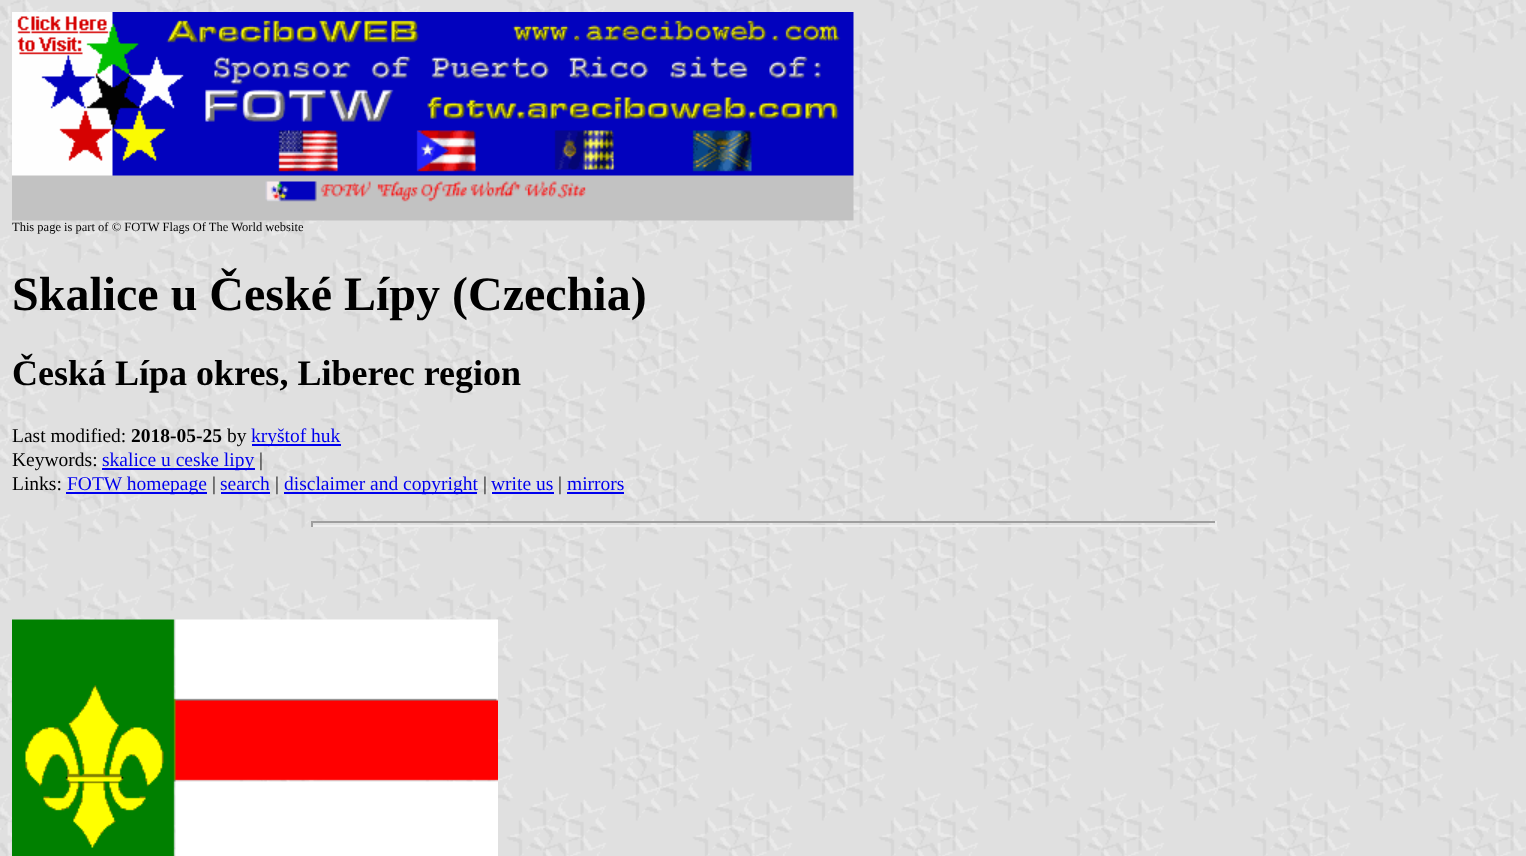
<!DOCTYPE html>
<meta charset="utf-8">
<style>body { margin: 0 } canvas { display: block }</style>
<canvas id="canvas" width="1526" height="856"></canvas>
<script type="module">
  const canvas = document.getElementById("canvas");
  const ctx = canvas.getContext("2d");
  ctx.miterLimit = 4;
  ctx.fontKerning = "normal";
  async function loadImage(src) {
    const img = new Image();
    img.src = src;
    await img.decode();
    return img;
  }

  ctx.fillStyle = "#ffffff";
  ctx.fillRect(0, 0, 1526, 856);
  ctx.drawImage(await loadImage("img1.png"), 0, 0, 1526, 856);
  ctx.drawImage(await loadImage("img2.png"), 12, 12, 842, 209);
  ctx.font = "12.5px Liberation Serif";
  ctx.fillStyle = "#000000";
  ctx.fillText("This page is part of © FOTW Flags Of The World website", 12, 231);
  ctx.font = "bold 48px Liberation Serif";
  ctx.fillText("Skalice u České Lípy (Czechia)", 12, 310);
  ctx.font = "bold 36px Liberation Serif";
  ctx.fillText("Česká Lípa okres, Liberec region", 12, 385);
  ctx.font = "19.5px Liberation Serif";
  ctx.fillText("Last modified:", 12, 442);
  ctx.font = "bold 19.5px Liberation Serif";
  ctx.fillText("2018-05-25", 131, 442);
  ctx.font = "19.5px Liberation Serif";
  ctx.fillText("by", 227, 442);
  ctx.fillStyle = "#0000ee";
  ctx.fillRect(252, 444, 89, 2);
  ctx.fillText("kryštof huk", 251, 442);
  ctx.fillStyle = "#000000";
  ctx.fillText("Keywords:", 12, 466);
  ctx.fillStyle = "#0000ee";
  ctx.fillRect(102, 468, 153, 2);
  ctx.fillText("skalice u ceske lipy", 102, 466);
  ctx.fillStyle = "#000000";
  ctx.fillText("|", 259, 466);
  ctx.fillText("Links:", 12, 490);
  ctx.fillStyle = "#0000ee";
  ctx.fillRect(66, 492, 141, 2);
  ctx.fillText("FOTW homepage", 67, 490);
  ctx.fillStyle = "#000000";
  ctx.fillText("|", 212, 490);
  ctx.fillStyle = "#0000ee";
  ctx.fillText("search", 220, 490);
  ctx.fillRect(221, 492, 49, 2);
  ctx.fillStyle = "#000000";
  ctx.fillText("|", 275, 490);
  ctx.fillStyle = "#0000ee";
  ctx.fillRect(284, 492, 193, 2);
  ctx.fillText("disclaimer and copyright", 284, 490);
  ctx.fillStyle = "#000000";
  ctx.fillText("|", 483, 490);
  ctx.fillStyle = "#0000ee";
  ctx.fillText("write us", 491, 490);
  ctx.fillRect(492, 492, 62, 2);
  ctx.fillStyle = "#000000";
  ctx.fillText("|", 558, 490);
  ctx.fillStyle = "#0000ee";
  ctx.fillText("mirrors", 567, 490);
  ctx.fillRect(567, 492, 57, 2);
  ctx.fillStyle = "#9f9f9f";
  ctx.fillRect(311, 521, 906, 2);
  ctx.fillStyle = "#eeeeee";
  ctx.fillRect(1215, 521, 2, 6);
  ctx.fillRect(311, 525, 906, 2);
  ctx.fillStyle = "#9f9f9f";
  ctx.fillRect(311, 521, 2, 6);
  ctx.drawImage(await loadImage("img3.png"), 12, 619, 486, 237);
</script>
